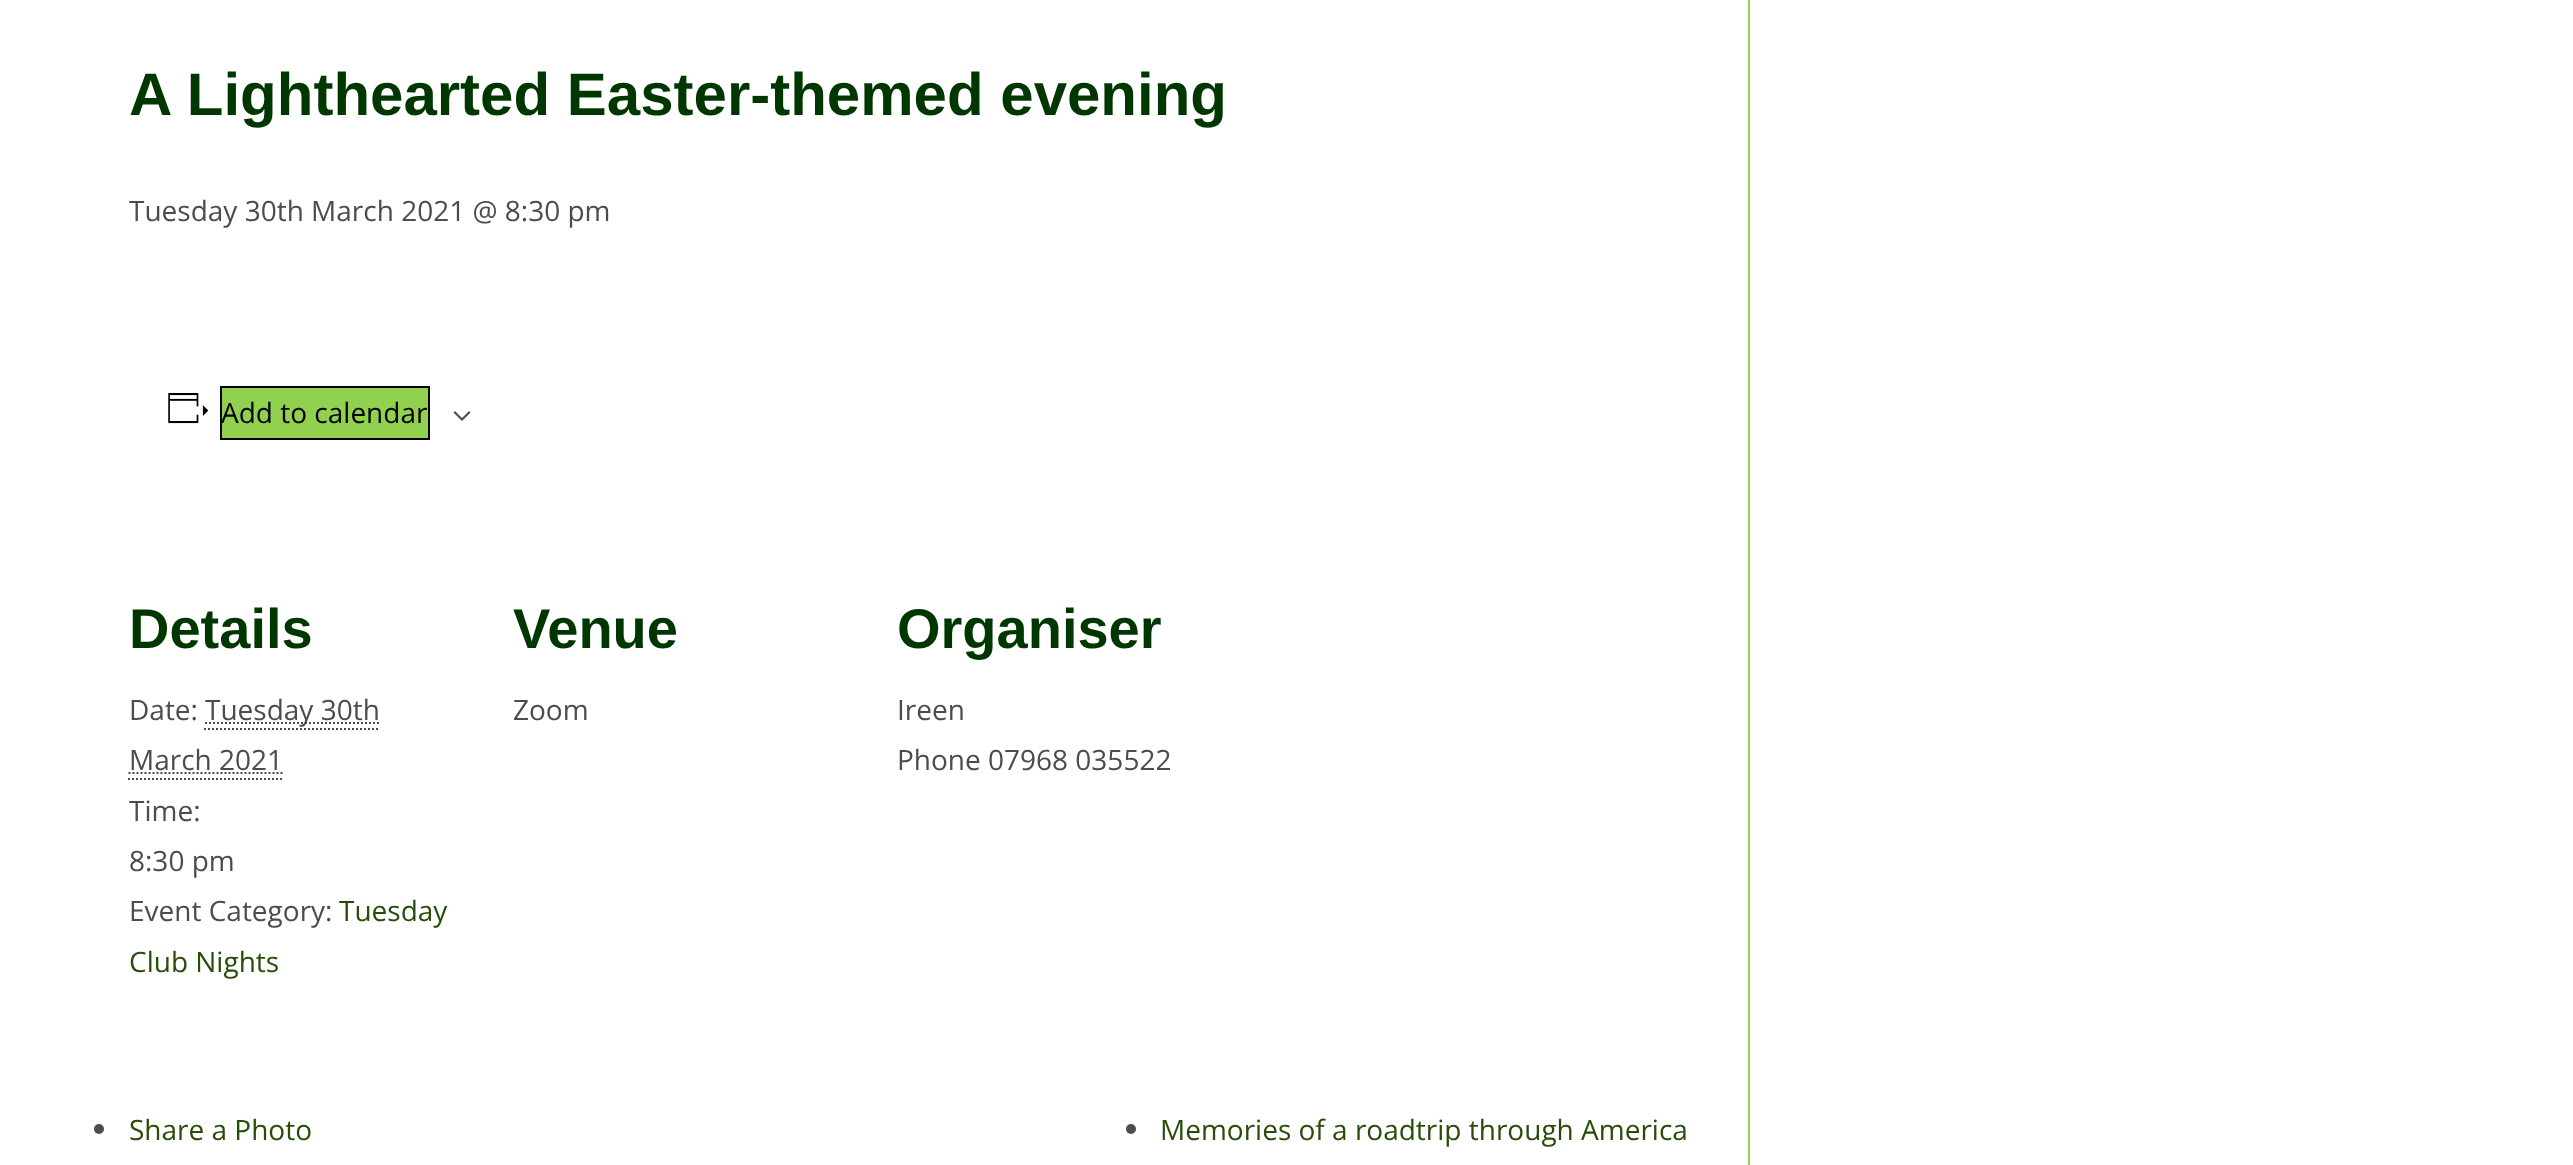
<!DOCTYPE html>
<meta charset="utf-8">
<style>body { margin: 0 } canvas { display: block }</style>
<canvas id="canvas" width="2573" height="1165"></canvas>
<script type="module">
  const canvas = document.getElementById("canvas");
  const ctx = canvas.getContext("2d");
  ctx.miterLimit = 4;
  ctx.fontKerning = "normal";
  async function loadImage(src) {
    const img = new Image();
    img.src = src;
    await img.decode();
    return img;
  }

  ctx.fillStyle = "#ffffff";
  ctx.fillRect(0, 0, 2573, 1165);
  ctx.fillStyle = "#92d050";
  ctx.fillRect(1748, 0, 2, 1165);
  ctx.font = "bold 60px Liberation Sans";
  ctx.fillStyle = "#003600";
  ctx.fillText("A Lighthearted Easter-themed evening", 129, 115);
  ctx.font = "28px Open Sans";
  ctx.fillStyle = "#4c4c4c";
  ctx.fillText("Tuesday 30th March 2021 @ 8:30 pm", 129, 221);
  ctx.drawImage(await loadImage("img1.png"), 168, 393, 41, 31);
  ctx.fillStyle = "#92d050";
  ctx.beginPath();
  ctx.rect(221, 387, 208, 52);
  ctx.fill();
  ctx.strokeStyle = "#000000";
  ctx.lineWidth = 2;
  ctx.stroke();
  ctx.fillStyle = "#000000";
  ctx.fillText("Add to calendar", 221, 423);
  ctx.fillStyle = "#4c4c4c";
  ctx.beginPath();
  ctx.moveTo(455, 411);
  ctx.lineTo(462, 418);
  ctx.lineTo(469, 411);
  ctx.lineTo(470.5, 412.5);
  ctx.lineTo(462, 421);
  ctx.lineTo(453.5, 412.5);
  ctx.closePath();
  ctx.fill("evenodd");
  ctx.font = "bold 56px Liberation Sans";
  ctx.fillStyle = "#003600";
  ctx.fillText("Details", 129, 648);
  ctx.font = "28px Open Sans";
  ctx.fillStyle = "#4c4c4c";
  ctx.fillText("Date:", 129, 720);
  ctx.beginPath();
  ctx.moveTo(205, 723);
  ctx.lineTo(380, 723);
  ctx.strokeStyle = "#4c4c4c";
  ctx.setLineDash([2, 2]);
  ctx.stroke();
  ctx.fillText("Tuesday 30th", 205, 720);
  ctx.beginPath();
  ctx.moveTo(204, 729);
  ctx.lineTo(380, 729);
  ctx.stroke();
  ctx.fillText("March 2021", 129, 770);
  ctx.beginPath();
  ctx.moveTo(128, 779);
  ctx.lineTo(282, 779);
  ctx.stroke();
  ctx.beginPath();
  ctx.moveTo(128.5, 773);
  ctx.lineTo(283, 773);
  ctx.stroke();
  ctx.fillText("Time:", 129, 821);
  ctx.fillText("8:30 pm", 129, 871);
  ctx.fillText("Event Category:", 129, 921);
  ctx.fillStyle = "#294c08";
  ctx.fillText("Tuesday", 339, 921);
  ctx.fillText("Club Nights", 129, 972);
  ctx.font = "bold 56px Liberation Sans";
  ctx.fillStyle = "#003600";
  ctx.fillText("Venue", 513, 648);
  ctx.font = "28px Open Sans";
  ctx.fillStyle = "#4c4c4c";
  ctx.fillText("Zoom", 513, 720);
  ctx.font = "bold 56px Liberation Sans";
  ctx.fillStyle = "#003600";
  ctx.fillText("Organiser", 897, 648);
  ctx.font = "28px Open Sans";
  ctx.fillStyle = "#4c4c4c";
  ctx.fillText("Ireen", 897, 720);
  ctx.fillText("Phone 07968 035522", 897, 770);
  ctx.beginPath();
  ctx.arc(99, 1129, 5, 0, Math.PI * 2);
  ctx.fill();
  ctx.fillStyle = "#294c08";
  ctx.fillText("Share a Photo", 129, 1140);
  ctx.fillStyle = "#4c4c4c";
  ctx.beginPath();
  ctx.arc(1131, 1129, 5, 0, Math.PI * 2);
  ctx.fill();
  ctx.fillStyle = "#294c08";
  ctx.fillText("Memories of a roadtrip through America", 1160, 1140);
</script>
